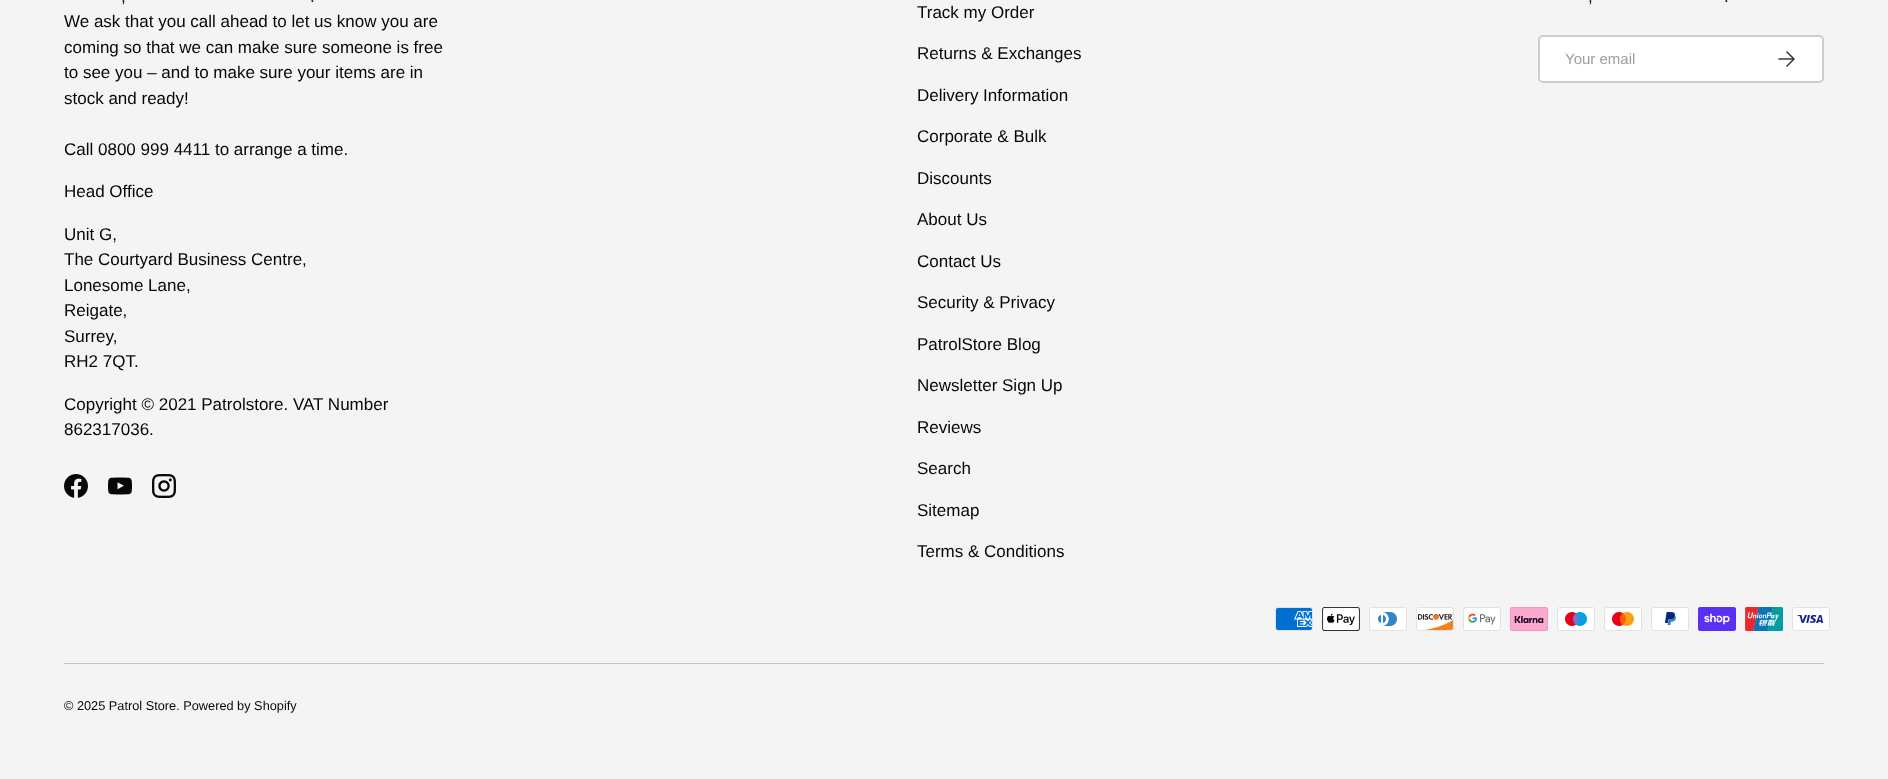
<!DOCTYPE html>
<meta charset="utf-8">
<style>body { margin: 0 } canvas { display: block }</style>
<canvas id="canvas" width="1888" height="779"></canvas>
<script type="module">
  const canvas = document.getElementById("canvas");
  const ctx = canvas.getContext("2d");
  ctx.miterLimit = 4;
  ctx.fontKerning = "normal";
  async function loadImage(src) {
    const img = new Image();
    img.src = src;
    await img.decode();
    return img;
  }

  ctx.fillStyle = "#f4f4f4";
  ctx.fillRect(0, 0, 1888, 779);
  ctx.font = "17px Liberation Sans";
  ctx.fillStyle = "#070707";
  ctx.fillText(",", 121, 2);
  ctx.fillText(".", 310, 2);
  ctx.fillText("We ask that you call ahead to let us know you are", 64, 27);
  ctx.fillText("coming so that we can make sure someone is free", 64, 53);
  ctx.fillText("to see you – and to make sure your items are in", 64, 78);
  ctx.fillText("stock and ready!", 64, 104);
  ctx.fillText("Call 0800 999 4411 to arrange a time.", 64, 155);
  ctx.fillText("Head Office", 64, 197);
  ctx.fillText("Unit G,", 64, 240);
  ctx.fillText("The Courtyard Business Centre,", 64, 265);
  ctx.fillText("Lonesome Lane,", 64, 291);
  ctx.fillText("Reigate,", 64, 316);
  ctx.fillText("Surrey,", 64, 342);
  ctx.fillText("RH2 7QT.", 64, 367);
  ctx.fillText("Copyright © 2021 Patrolstore. VAT Number", 64, 410);
  ctx.fillText("862317036.", 64, 435);
  ctx.drawImage(await loadImage("img1.png"), 64, 474, 24, 24);
  ctx.drawImage(await loadImage("img2.png"), 108, 477, 24, 18);
  ctx.drawImage(await loadImage("img3.png"), 152, 474, 24, 24);
  ctx.fillText("Track my Order", 917, 18);
  ctx.fillText("Returns & Exchanges", 917, 59);
  ctx.fillText("Delivery Information", 917, 101);
  ctx.fillText("Corporate & Bulk", 917, 142);
  ctx.fillText("Discounts", 917, 184);
  ctx.fillText("About Us", 917, 225);
  ctx.fillText("Contact Us", 917, 267);
  ctx.fillText("Security & Privacy", 917, 308);
  ctx.fillText("PatrolStore Blog", 917, 350);
  ctx.fillText("Newsletter Sign Up", 917, 391);
  ctx.fillText("Reviews", 917, 433);
  ctx.fillText("Search", 917, 474);
  ctx.fillText("Sitemap", 917, 516);
  ctx.fillText("Terms & Conditions", 917, 557);
  ctx.fillText(",", 1588, 2);
  ctx.fillText(".", 1724, 2);
  ctx.fillStyle = "#ffffff";
  ctx.beginPath();
  ctx.roundRect(1538, 35, 286, 48, 5);
  ctx.fill();
  ctx.beginPath();
  ctx.roundRect(1539, 36, 284, 46, 4);
  ctx.strokeStyle = "rgba(7, 7, 7, 0.2)";
  ctx.lineWidth = 2;
  ctx.stroke();
  ctx.font = "15px Liberation Sans";
  ctx.fillStyle = "#9d9d9d";
  ctx.fillText("Your email", 1565, 64);
  ctx.beginPath();
  ctx.moveTo(1778.5, 59);
  ctx.lineTo(1793.5, 59);
  ctx.moveTo(1786.5, 51.5);
  ctx.lineTo(1794, 59);
  ctx.lineTo(1786.5, 66.5);
  ctx.strokeStyle = "#3a3a3a";
  ctx.lineWidth = 1.5;
  ctx.stroke();
  ctx.drawImage(await loadImage("img4.png"), 1275, 607, 38, 24);
  ctx.drawImage(await loadImage("img5.png"), 1322, 607, 38, 24);
  ctx.drawImage(await loadImage("img6.png"), 1369, 607, 38, 24);
  ctx.drawImage(await loadImage("img7.png"), 1416, 607, 38, 24);
  ctx.drawImage(await loadImage("img8.png"), 1463, 607, 38, 24);
  ctx.drawImage(await loadImage("img9.png"), 1510, 607, 38, 24);
  ctx.drawImage(await loadImage("img10.png"), 1557, 607, 38, 24);
  ctx.drawImage(await loadImage("img11.png"), 1604, 607, 38, 24);
  ctx.drawImage(await loadImage("img12.png"), 1651, 607, 38, 24);
  ctx.drawImage(await loadImage("img13.png"), 1698, 607, 38, 24);
  ctx.drawImage(await loadImage("img14.png"), 1745, 607, 38, 24);
  ctx.drawImage(await loadImage("img15.png"), 1792, 607, 38, 24);
  ctx.fillStyle = "#c5c5c5";
  ctx.fillRect(64, 663, 1760, 1);
  ctx.font = "12.75px Liberation Sans";
  ctx.fillStyle = "#070707";
  ctx.fillText("© 2025 Patrol Store. Powered by Shopify", 64, 710);
</script>
